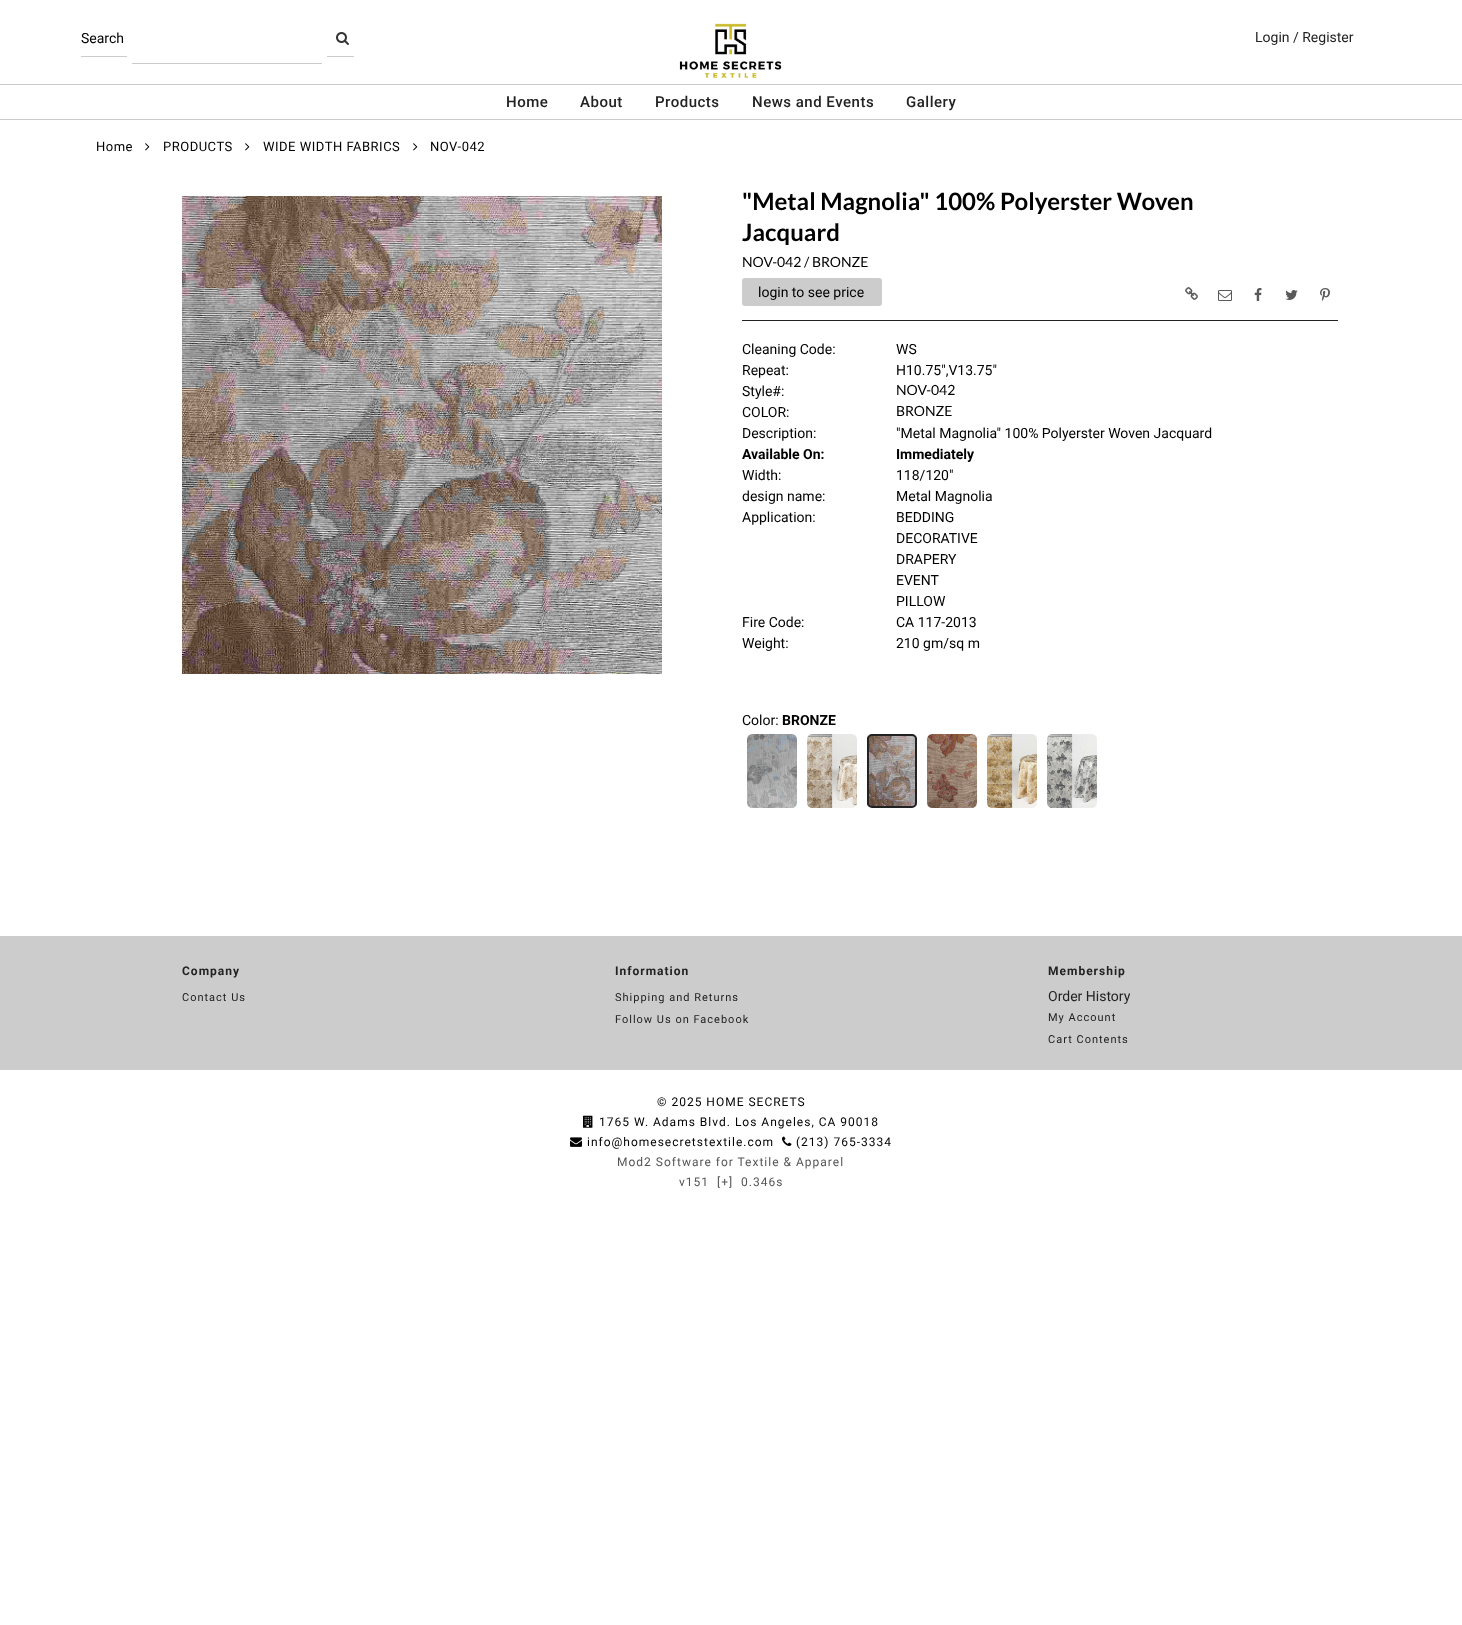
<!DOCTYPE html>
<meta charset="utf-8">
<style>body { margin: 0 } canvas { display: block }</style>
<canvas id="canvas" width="1462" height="1625"></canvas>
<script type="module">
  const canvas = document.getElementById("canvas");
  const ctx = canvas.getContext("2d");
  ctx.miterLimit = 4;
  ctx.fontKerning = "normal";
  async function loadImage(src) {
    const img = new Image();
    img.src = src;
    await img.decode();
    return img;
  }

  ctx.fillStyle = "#ffffff";
  ctx.fillRect(0, 0, 1462, 1625);
  ctx.font = "14px Roboto";
  ctx.fillStyle = "#000000";
  ctx.fillText("Search", 81, 43);
  ctx.fillStyle = "#cccccc";
  ctx.fillRect(81, 56, 46, 1);
  ctx.drawImage(await loadImage("img1.png"), 336, 32, 13, 13);
  ctx.fillRect(327, 56, 27, 1);
  ctx.fillRect(132, 63, 190, 1);
  ctx.drawImage(await loadImage("img2.png"), 679, 23, 103, 55);
  ctx.fillStyle = "#222222";
  ctx.fillText("Login / Register", 1255, 42);
  ctx.fillStyle = "#cccccc";
  ctx.fillRect(0, 84, 1462, 1);
  ctx.fillRect(0, 119, 1462, 1);
  ctx.letterSpacing = "0.5px";
  ctx.font = "500 15px Roboto";
  ctx.fillStyle = "#222222";
  ctx.fillText("Home", 506, 107);
  ctx.fillText("About", 580, 107);
  ctx.fillText("Products", 655, 107);
  ctx.fillText("News and Events", 752, 107);
  ctx.fillText("Gallery", 906, 107);
  ctx.font = "13px Roboto";
  ctx.fillStyle = "#000000";
  ctx.fillText("Home", 96, 151);
  ctx.drawImage(await loadImage("img3.png"), 145, 143, 5, 8);
  ctx.fillText("PRODUCTS", 163, 151);
  ctx.drawImage(await loadImage("img3.png"), 245, 143, 5, 8);
  ctx.fillText("WIDE WIDTH FABRICS", 263, 151);
  ctx.drawImage(await loadImage("img3.png"), 413, 143, 5, 8);
  ctx.fillText("NOV-042", 430, 151);
  ctx.drawImage(await loadImage("img4.png"), 182, 196, 480, 478);
  ctx.letterSpacing = "0px";
  ctx.font = "bold 24px Lato";
  ctx.fillText("\"Metal Magnolia\" 100% Polyerster Woven", 742, 210);
  ctx.fillText("Jacquard", 742, 241);
  ctx.font = "14px Lato";
  ctx.fillText("NOV-042 / BRONZE", 742, 267);
  ctx.fillStyle = "#cccccc";
  ctx.beginPath();
  ctx.roundRect(742, 278, 140, 28, 3);
  ctx.fill();
  ctx.font = "14px Roboto";
  ctx.fillStyle = "#000000";
  ctx.fillText("login to see price", 758, 297);
  ctx.drawImage(await loadImage("img5.png"), 1185, 287, 13, 13);
  ctx.drawImage(await loadImage("img6.png"), 1218, 290, 14, 11);
  ctx.drawImage(await loadImage("img7.png"), 1254, 288, 8, 13);
  ctx.drawImage(await loadImage("img8.png"), 1285, 290, 13, 10);
  ctx.drawImage(await loadImage("img9.png"), 1320, 288, 10, 13);
  ctx.fillStyle = "#222222";
  ctx.fillRect(742, 320, 596, 1);
  ctx.fillStyle = "#000000";
  ctx.fillText("Cleaning Code:", 742, 354);
  ctx.fillText("WS", 896, 354);
  ctx.fillText("Repeat:", 742, 375);
  ctx.fillText("H10.75\",V13.75\"", 896, 375);
  ctx.fillText("Style#:", 742, 396);
  ctx.font = "14px Lato";
  ctx.fillText("NOV-042", 896, 395);
  ctx.font = "14px Roboto";
  ctx.fillText("COLOR:", 742, 417);
  ctx.font = "14px Lato";
  ctx.fillText("BRONZE", 896, 416);
  ctx.font = "14px Roboto";
  ctx.fillText("Description:", 742, 438);
  ctx.fillText("\"Metal Magnolia\" 100% Polyerster Woven Jacquard", 896, 438);
  ctx.font = "bold 14px Roboto";
  ctx.fillText("Available On:", 742, 459);
  ctx.fillText("Immediately", 896, 459);
  ctx.font = "14px Roboto";
  ctx.fillText("Width:", 742, 480);
  ctx.fillText("118/120\"", 896, 480);
  ctx.fillText("design name:", 742, 501);
  ctx.fillText("Metal Magnolia", 896, 501);
  ctx.fillText("Application:", 742, 522);
  ctx.fillText("BEDDING", 896, 522);
  ctx.fillText("DECORATIVE", 896, 543);
  ctx.fillText("DRAPERY", 896, 564);
  ctx.fillText("EVENT", 896, 585);
  ctx.fillText("PILLOW", 896, 606);
  ctx.fillText("Fire Code:", 742, 627);
  ctx.fillText("CA 117-2013", 896, 627);
  ctx.fillText("Weight:", 742, 648);
  ctx.fillText("210 gm/sq m", 896, 648);
  ctx.fillText("Color:", 742, 725);
  ctx.font = "bold 14px Roboto";
  ctx.fillText("BRONZE", 782, 725);
  ctx.drawImage(await loadImage("img10.png"), 747, 734, 50, 74);
  ctx.drawImage(await loadImage("img11.png"), 807, 734, 50, 74);
  ctx.drawImage(await loadImage("img12.png"), 867, 736, 50, 70);
  ctx.beginPath();
  ctx.roundRect(868, 735, 48, 72, 4);
  ctx.strokeStyle = "#222222";
  ctx.lineWidth = 2;
  ctx.stroke();
  ctx.drawImage(await loadImage("img13.png"), 926, 734, 52, 74);
  ctx.drawImage(await loadImage("img14.png"), 987, 734, 50, 74);
  ctx.drawImage(await loadImage("img15.png"), 1047, 734, 50, 74);
  ctx.fillStyle = "#cccccc";
  ctx.fillRect(0, 936, 1462, 134);
  ctx.letterSpacing = "1px";
  ctx.font = "bold 12px Roboto";
  ctx.fillStyle = "#222222";
  ctx.fillText("Company", 182, 975);
  ctx.font = "11px Roboto";
  ctx.fillText("Contact Us", 182, 1001);
  ctx.font = "bold 12px Roboto";
  ctx.fillText("Information", 615, 975);
  ctx.font = "11px Roboto";
  ctx.fillText("Shipping and Returns", 615, 1001);
  ctx.fillText("Follow Us on Facebook", 615, 1023);
  ctx.font = "bold 12px Roboto";
  ctx.fillText("Membership", 1048, 975);
  ctx.letterSpacing = "0px";
  ctx.font = "14px Roboto";
  ctx.fillText("Order History", 1048, 1001);
  ctx.letterSpacing = "1px";
  ctx.font = "11px Roboto";
  ctx.fillText("My Account", 1048, 1021);
  ctx.fillText("Cart Contents", 1048, 1043);
  ctx.font = "12px Roboto";
  ctx.fillStyle = "#000000";
  ctx.fillText("© 2025 HOME SECRETS", 657, 1106);
  ctx.drawImage(await loadImage("img16.png"), 583, 1115, 10, 13);
  ctx.fillText("1765 W. Adams Blvd. Los Angeles, CA 90018", 599, 1126);
  ctx.drawImage(await loadImage("img17.png"), 570, 1137, 12, 10);
  ctx.fillText("info@homesecretstextile.com", 587, 1146);
  ctx.drawImage(await loadImage("img18.png"), 782, 1136, 10, 10);
  ctx.fillText("(213) 765-3334", 796, 1146);
  ctx.fillStyle = "#555555";
  ctx.fillText("Mod2 Software for Textile & Apparel", 617, 1166);
  ctx.fillText("v151", 679, 1186);
  ctx.fillText("[+]", 717, 1186);
  ctx.fillText("0.346s", 741, 1186);
</script>
